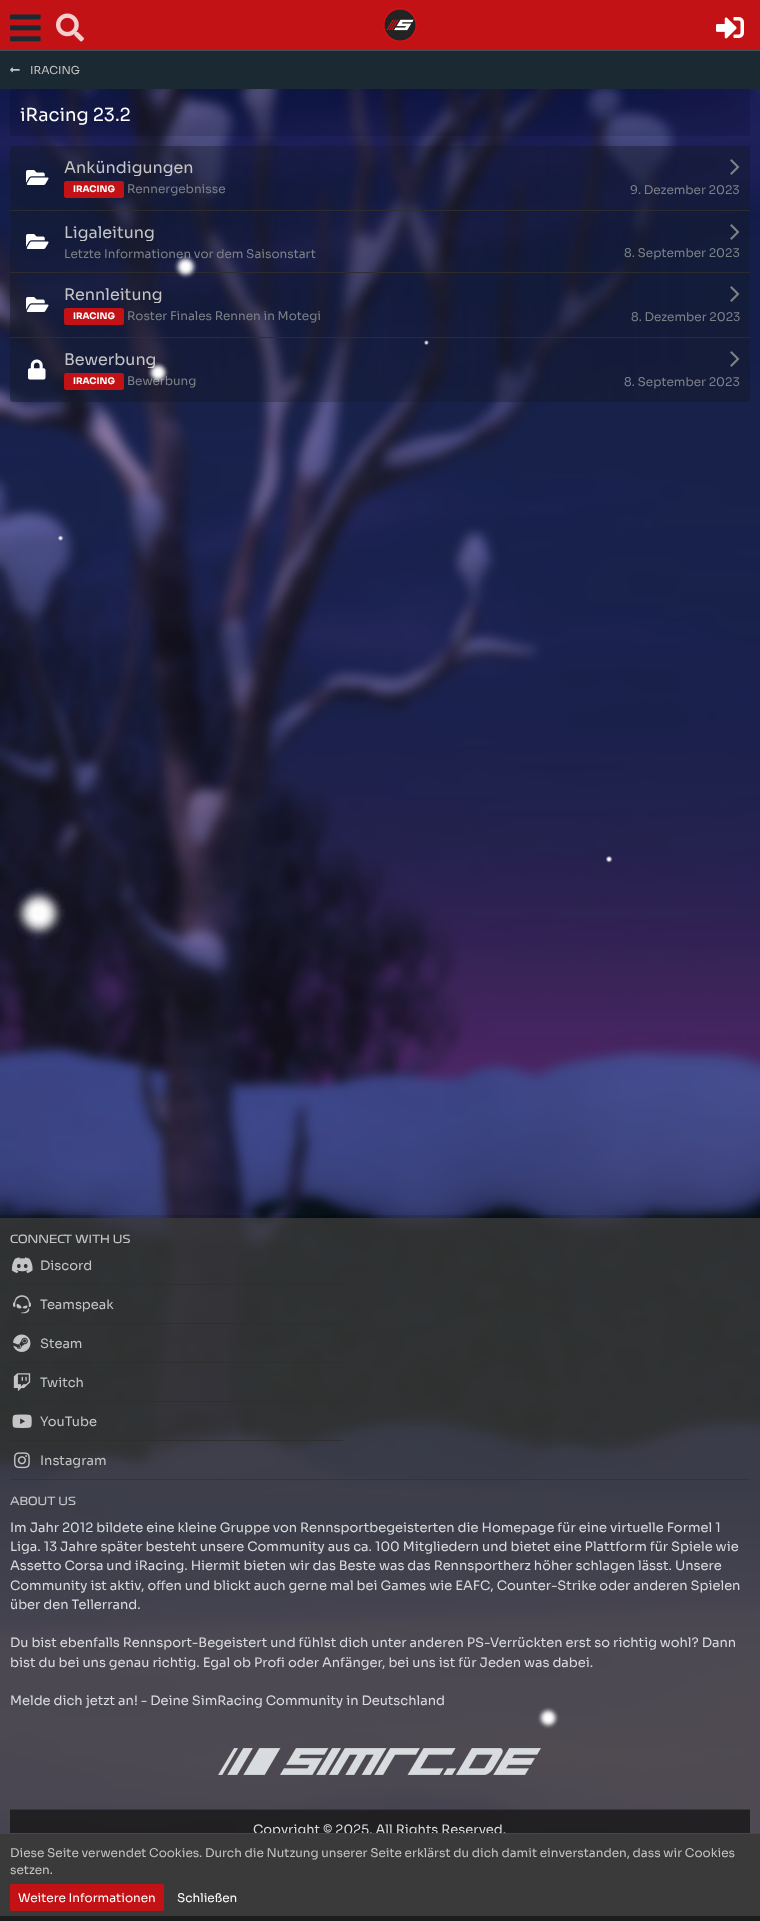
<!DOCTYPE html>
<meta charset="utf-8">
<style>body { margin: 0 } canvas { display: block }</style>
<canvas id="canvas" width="760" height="1921"></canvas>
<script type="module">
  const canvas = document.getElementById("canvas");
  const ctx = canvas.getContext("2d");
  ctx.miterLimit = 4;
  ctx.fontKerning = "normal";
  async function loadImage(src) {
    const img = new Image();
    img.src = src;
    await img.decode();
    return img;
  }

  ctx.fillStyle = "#ffffff";
  ctx.fillRect(0, 0, 760, 1921);
  ctx.drawImage(await loadImage("img1.png"), 0, 89, 760, 1832);
  ctx.fillStyle = "#c31216";
  ctx.fillRect(0, 0, 760, 50);
  ctx.drawImage(await loadImage("img2.png"), 10, 14, 31, 28);
  ctx.drawImage(await loadImage("img3.png"), 56, 13, 28, 29);
  ctx.drawImage(await loadImage("img4.png"), 383, 8, 34, 34);
  ctx.drawImage(await loadImage("img5.png"), 716, 17, 28, 22);
  ctx.fillStyle = "#1b2932";
  ctx.fillRect(0, 51, 760, 38);
  ctx.fillStyle = "#445057";
  ctx.fillRect(0, 50, 760, 1);
  ctx.drawImage(await loadImage("img6.png"), 10, 67, 10, 6);
  ctx.font = "11px Sora";
  ctx.fillStyle = "#c5c5c5";
  ctx.fillText("IRACING", 30, 74);
  ctx.fillStyle = "rgba(0, 0, 0, 0.12)";
  ctx.beginPath();
  ctx.roundRect(10, 89, 740, 47, [3, 3, 0, 0]);
  ctx.fill();
  ctx.font = "18px Sora";
  ctx.fillStyle = "#ffffff";
  ctx.fillText("iRacing 23.2", 20, 121);
  ctx.fillStyle = "rgba(47, 47, 47, 0.9)";
  ctx.fillRect(10, 210, 740, 1);
  ctx.save();
  ctx.beginPath();
  ctx.rect(64, 160, 648, 16);
  ctx.clip();
  ctx.font = "16px Sora";
  ctx.fillStyle = "#c5c5c5";
  ctx.fillText("Ankündigungen", 64, 173);
  ctx.restore();
  ctx.drawImage(await loadImage("img7.png"), 730, 159, 10, 16);
  ctx.drawImage(await loadImage("img8.png"), 26, 170, 23, 15);
  ctx.fillStyle = "#c31216";
  ctx.beginPath();
  ctx.roundRect(64.5, 181.5, 59, 16, 1.5);
  ctx.fill();
  ctx.strokeStyle = "#c31216";
  ctx.stroke();
  ctx.font = "bold 9px Sora";
  ctx.fillStyle = "#ffffff";
  ctx.fillText("IRACING", 73, 192);
  ctx.font = "12px Sora";
  ctx.fillStyle = "#7d8287";
  ctx.fillText("Rennergebnisse", 127, 193);
  ctx.fillText("9. Dezember 2023", 630, 194);
  ctx.fillStyle = "rgba(47, 47, 47, 0.9)";
  ctx.fillRect(10, 272, 740, 1);
  ctx.drawImage(await loadImage("img9.png"), 26, 234, 23, 15);
  ctx.save();
  ctx.beginPath();
  ctx.rect(64, 225, 648, 16);
  ctx.clip();
  ctx.font = "16px Sora";
  ctx.fillStyle = "#c5c5c5";
  ctx.fillText("Ligaleitung", 64, 238);
  ctx.restore();
  ctx.drawImage(await loadImage("img10.png"), 730, 224, 10, 16);
  ctx.fillStyle = "#7d8287";
  ctx.fillText("Letzte Informationen vor dem Saisonstart", 64, 258);
  ctx.fillText("8. September 2023", 624, 257);
  ctx.fillStyle = "rgba(47, 47, 47, 0.9)";
  ctx.fillRect(10, 337, 740, 1);
  ctx.save();
  ctx.beginPath();
  ctx.rect(64, 287, 648, 16);
  ctx.clip();
  ctx.font = "16px Sora";
  ctx.fillStyle = "#c5c5c5";
  ctx.fillText("Rennleitung", 64, 300);
  ctx.restore();
  ctx.drawImage(await loadImage("img11.png"), 730, 286, 10, 16);
  ctx.drawImage(await loadImage("img12.png"), 26, 297, 23, 15);
  ctx.fillStyle = "#c31216";
  ctx.beginPath();
  ctx.roundRect(64.5, 308.5, 59, 16, 1.5);
  ctx.fill();
  ctx.stroke();
  ctx.font = "bold 9px Sora";
  ctx.fillStyle = "#ffffff";
  ctx.fillText("IRACING", 73, 319);
  ctx.font = "12px Sora";
  ctx.fillStyle = "#7d8287";
  ctx.fillText("Roster Finales Rennen in Motegi", 127, 320);
  ctx.fillText("8. Dezember 2023", 631, 321);
  ctx.drawImage(await loadImage("img13.png"), 28, 359, 18, 21);
  ctx.save();
  ctx.beginPath();
  ctx.rect(64, 352, 648, 16);
  ctx.clip();
  ctx.font = "16px Sora";
  ctx.fillStyle = "#c5c5c5";
  ctx.fillText("Bewerbung", 64, 365);
  ctx.restore();
  ctx.drawImage(await loadImage("img14.png"), 730, 351, 10, 16);
  ctx.fillStyle = "#c31216";
  ctx.beginPath();
  ctx.roundRect(64.5, 373.5, 59, 16, 1.5);
  ctx.fill();
  ctx.stroke();
  ctx.font = "bold 9px Sora";
  ctx.fillStyle = "#ffffff";
  ctx.fillText("IRACING", 73, 384);
  ctx.font = "12px Sora";
  ctx.fillStyle = "#7d8287";
  ctx.fillText("Bewerbung", 127, 385);
  ctx.fillText("8. September 2023", 624, 386);
  ctx.fillStyle = "rgba(0, 0, 0, 0.1)";
  ctx.fillRect(0, 1215, 760, 3);
  ctx.fillStyle = "rgba(58, 58, 58, 0.8)";
  ctx.fillRect(0, 1218, 760, 703);
  ctx.fillStyle = "#273946";
  ctx.fillRect(10, 1479, 740, 1);
  ctx.font = "11px 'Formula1'";
  ctx.fillStyle = "#c5c5c5";
  ctx.fillText("CONNECT WITH US", 10, 1243);
  ctx.fillStyle = "rgba(47, 47, 47, 0.9)";
  ctx.fillRect(10, 1284, 333, 1);
  ctx.drawImage(await loadImage("img15.png"), 11, 1257, 22, 17);
  ctx.font = "13px Sora";
  ctx.fillStyle = "#c5c5c5";
  ctx.fillText("Discord", 40, 1270);
  ctx.fillStyle = "rgba(47, 47, 47, 0.9)";
  ctx.fillRect(10, 1323, 333, 1);
  ctx.drawImage(await loadImage("img16.png"), 13, 1295, 18, 19);
  ctx.fillStyle = "#c5c5c5";
  ctx.fillText("Teamspeak", 40, 1309);
  ctx.fillStyle = "rgba(47, 47, 47, 0.9)";
  ctx.fillRect(10, 1362, 333, 1);
  ctx.drawImage(await loadImage("img17.png"), 13, 1334, 18, 18);
  ctx.fillStyle = "#c5c5c5";
  ctx.fillText("Steam", 40, 1348);
  ctx.fillStyle = "rgba(47, 47, 47, 0.9)";
  ctx.fillRect(10, 1401, 333, 1);
  ctx.drawImage(await loadImage("img18.png"), 13, 1373, 18, 18);
  ctx.fillStyle = "#c5c5c5";
  ctx.fillText("Twitch", 40, 1387);
  ctx.fillStyle = "rgba(47, 47, 47, 0.9)";
  ctx.fillRect(10, 1440, 333, 1);
  ctx.drawImage(await loadImage("img19.png"), 12, 1414, 20, 14);
  ctx.fillStyle = "#c5c5c5";
  ctx.fillText("YouTube", 40, 1426);
  ctx.drawImage(await loadImage("img20.png"), 14, 1452, 16, 17);
  ctx.fillText("Instagram", 40, 1465);
  ctx.font = "11px 'Formula1'";
  ctx.fillText("ABOUT US", 10, 1505);
  ctx.font = "13px Sora";
  ctx.fillStyle = "#d9dcde";
  ctx.fillText("Im Jahr 2012 bildete eine kleine Gruppe von Rennsportbegeisterten die Homepage für eine virtuelle Formel 1", 10, 1532);
  ctx.fillText("Liga. 13 Jahre später besteht unsere Community aus ca. 100 Mitgliedern und bietet eine Plattform für Spiele wie", 10, 1551);
  ctx.fillText("Assetto Corsa und iRacing. Hiermit bieten wir das Beste was das Rennsportherz höher schlagen lässt. Unsere", 10, 1570);
  ctx.fillText("Community ist aktiv, offen und blickt auch gerne mal bei Games wie EAFC, Counter-Strike oder anderen Spielen", 10, 1590);
  ctx.fillText("über den Tellerrand.", 10, 1609);
  ctx.fillText("Du bist ebenfalls Rennsport-Begeistert und fühlst dich unter anderen PS-Verrückten erst so richtig wohl? Dann", 10, 1647);
  ctx.fillText("bist du bei uns genau richtig. Egal ob Profi oder Anfänger, bei uns ist für Jeden was dabei.", 10, 1667);
  ctx.fillText("Melde dich jetzt an! - Deine SimRacing Community in Deutschland", 10, 1705);
  ctx.drawImage(await loadImage("img21.png"), 218, 1748, 323, 27);
  ctx.fillStyle = "rgba(24, 22, 23, 0.8)";
  ctx.fillRect(10, 1810, 740, 23);
  ctx.fillStyle = "#83181b";
  ctx.fillRect(10, 1809, 740, 1);
  ctx.fillStyle = "#d9dcde";
  ctx.fillText("Copyright © 2025. All Rights Reserved.", 253, 1834);
  ctx.drawImage(await loadImage("img22.png"), 13, 254, 600, 1475);
  ctx.fillStyle = "#3a3a3a";
  ctx.beginPath();
  ctx.roundRect(0, 1833, 760, 88, 3);
  ctx.fill();
  ctx.fillStyle = "#c31216";
  ctx.fillRect(2, 1833, 757, 1);
  ctx.font = "12px Sora";
  ctx.fillStyle = "#c5c5c5";
  ctx.fillText("Diese Seite verwendet Cookies. Durch die Nutzung unserer Seite erklärst du dich damit einverstanden, dass wir Cookies", 10, 1857);
  ctx.fillText("setzen.", 10, 1874);
  ctx.fillStyle = "#c31216";
  ctx.beginPath();
  ctx.roundRect(10, 1884, 154, 27, 2);
  ctx.fill();
  ctx.fillStyle = "#ffffff";
  ctx.fillText("Weitere Informationen", 18, 1902);
  ctx.fillText("Schließen", 177, 1902);
  ctx.fillStyle = "rgba(24, 22, 23, 0.8)";
  ctx.fillRect(0, 1916, 760, 5);
</script>
